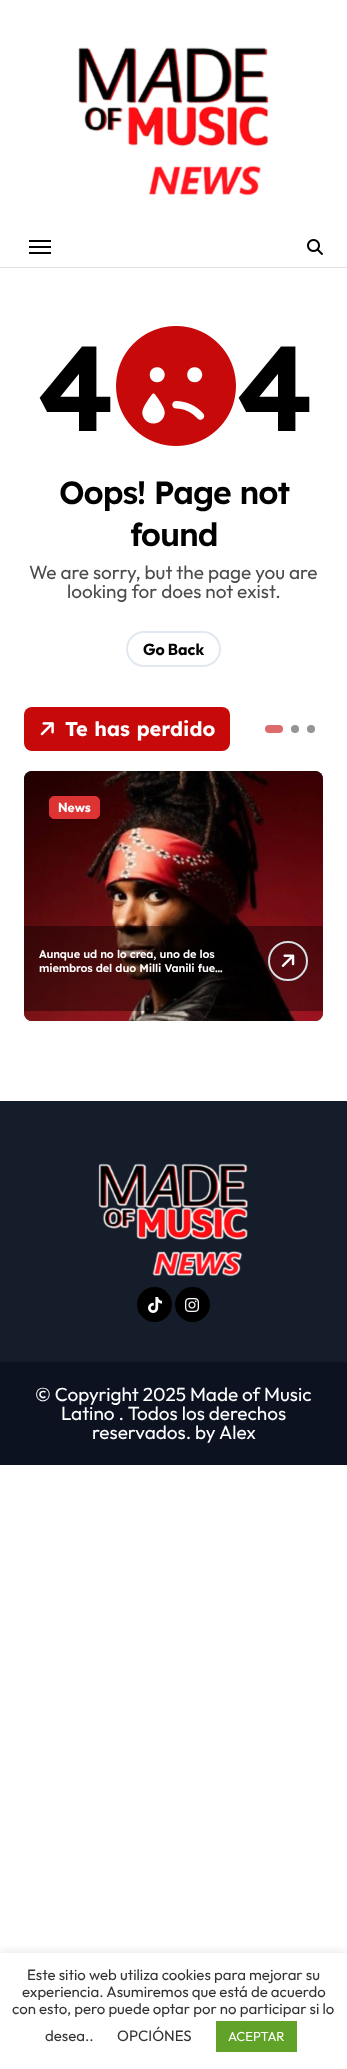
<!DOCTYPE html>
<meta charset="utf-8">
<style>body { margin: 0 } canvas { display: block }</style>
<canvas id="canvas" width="347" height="2069"></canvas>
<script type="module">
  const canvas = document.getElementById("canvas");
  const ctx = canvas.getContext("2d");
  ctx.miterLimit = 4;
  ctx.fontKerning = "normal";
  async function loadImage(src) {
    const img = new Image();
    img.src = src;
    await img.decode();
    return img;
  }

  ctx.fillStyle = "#ffffff";
  ctx.fillRect(0, 0, 347, 2069);
  ctx.fillStyle = "#e0e0e0";
  ctx.fillRect(0, 267, 347, 1);
  ctx.drawImage(await loadImage("img1.png"), 78, 47, 191, 149);
  ctx.fillStyle = "#000000";
  ctx.fillRect(29, 240, 22, 2);
  ctx.fillRect(29, 246, 22, 2);
  ctx.fillRect(29, 252, 22, 2);
  ctx.drawImage(await loadImage("img2.png"), 307, 239, 16, 16);
  ctx.letterSpacing = "-4px";
  ctx.font = "600 120px Lexend Deca";
  ctx.fillText("4", 37, 431);
  ctx.drawImage(await loadImage("img3.png"), 116, 326, 120, 120);
  ctx.fillText("4", 236, 431);
  ctx.letterSpacing = "-1.1px";
  ctx.font = "600 32px Lexend Deca";
  ctx.fillText("Oops! Page not", 59, 504);
  ctx.fillText("found", 130, 546);
  ctx.letterSpacing = "0px";
  ctx.font = "19px Outfit";
  ctx.fillStyle = "#4c4c4c";
  ctx.fillText("We are sorry, but the page you are", 29, 579);
  ctx.fillText("looking for does not exist.", 67, 598);
  ctx.beginPath();
  ctx.roundRect(127, 632, 93, 34, 17);
  ctx.strokeStyle = "#e2e8f0";
  ctx.lineWidth = 2;
  ctx.stroke();
  ctx.font = "bold 16px Outfit";
  ctx.fillStyle = "#000000";
  ctx.fillText("Go Back", 143, 655);
  ctx.fillStyle = "#c70909";
  ctx.beginPath();
  ctx.roundRect(24, 707, 206, 44, 8);
  ctx.fill();
  ctx.drawImage(await loadImage("img4.png"), 40, 722, 14, 14);
  ctx.font = "bold 20px Lexend Deca";
  ctx.fillStyle = "#ffffff";
  ctx.fillText("Te has perdido", 65, 736);
  ctx.fillStyle = "#dd6b6b";
  ctx.beginPath();
  ctx.roundRect(265, 725, 18, 8, 4);
  ctx.fill();
  ctx.fillStyle = "#949494";
  ctx.beginPath();
  ctx.arc(295, 729, 4, 0, Math.PI * 2);
  ctx.fill();
  ctx.beginPath();
  ctx.arc(311, 729, 4, 0, Math.PI * 2);
  ctx.fill();
  ctx.fillStyle = "#333333";
  ctx.beginPath();
  ctx.roundRect(24, 771, 299, 250, 8);
  ctx.fill();
  ctx.drawImage(await loadImage("img5.png"), 24, 771, 299, 250);
  ctx.fillStyle = "#dd3333";
  ctx.beginPath();
  ctx.roundRect(49.5, 796.5, 50, 22, 4.5);
  ctx.fill();
  ctx.strokeStyle = "#dd3333";
  ctx.lineWidth = 1;
  ctx.stroke();
  ctx.font = "bold 13px Outfit";
  ctx.fillStyle = "#ffffff";
  ctx.fillText("News", 58, 812);
  ctx.fillStyle = "rgba(0, 0, 0, 0.4)";
  ctx.fillRect(24, 926, 299, 85);
  ctx.letterSpacing = "-0.15px";
  ctx.font = "600 11px Lexend Deca";
  ctx.fillStyle = "#ffffff";
  ctx.fillText("Aunque ud no lo crea, uno de los", 39, 958);
  ctx.fillText("miembros del duo Milli Vanili fue…", 39, 972);
  ctx.beginPath();
  ctx.arc(288, 961, 19, 0, Math.PI * 2);
  ctx.strokeStyle = "#d3e0e2";
  ctx.lineWidth = 2;
  ctx.stroke();
  ctx.drawImage(await loadImage("img6.png"), 281, 954, 14, 13);
  ctx.fillStyle = "#161d2a";
  ctx.fillRect(0, 1101, 347, 261);
  ctx.drawImage(await loadImage("img7.png"), 98, 1163, 150, 114);
  ctx.fillStyle = "#000000";
  ctx.beginPath();
  ctx.arc(154.5, 1304.5, 17.5, 0, Math.PI * 2);
  ctx.fill();
  ctx.drawImage(await loadImage("img8.png"), 148, 1297, 14, 16);
  ctx.beginPath();
  ctx.arc(192.5, 1304.5, 17.5, 0, Math.PI * 2);
  ctx.fill();
  ctx.drawImage(await loadImage("img9.png"), 185, 1298, 14, 14);
  ctx.fillStyle = "#0d1221";
  ctx.fillRect(0, 1362, 347, 103);
  ctx.letterSpacing = "0px";
  ctx.font = "19px Outfit";
  ctx.fillStyle = "#ffffff";
  ctx.fillText("© Copyright 2025 Made of Music", 35, 1401);
  ctx.fillText("Latino . Todos los derechos", 61, 1420);
  ctx.fillText("reservados. by Alex", 92, 1439);
  ctx.save();
  ctx.beginPath();
  ctx.rect(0, 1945, 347, 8);
  ctx.clip();
  ctx.fillStyle = "rgba(172, 171, 171, 0.3)";
  ctx.filter = "blur(5px)";
  ctx.beginPath();
  ctx.rect(0, 1952, 347, 116);
  ctx.fill();
  ctx.filter = "none";
  ctx.restore();
  ctx.font = "15px Outfit";
  ctx.fillStyle = "#333333";
  ctx.fillText("Este sitio web utiliza cookies para mejorar su", 27, 1980);
  ctx.fillText("experiencia. Asumiremos que está de acuerdo", 22, 1997);
  ctx.fillText("con esto, pero puede optar por no participar si lo", 12, 2014);
  ctx.fillText("desea..", 45, 2041);
  ctx.fillText("OPCIÓNES", 117, 2041);
  ctx.fillStyle = "#61a229";
  ctx.fillRect(216, 2021, 81, 31);
  ctx.font = "13px Outfit";
  ctx.fillStyle = "#ffffff";
  ctx.fillText("ACEPTAR", 228, 2041);
</script>
